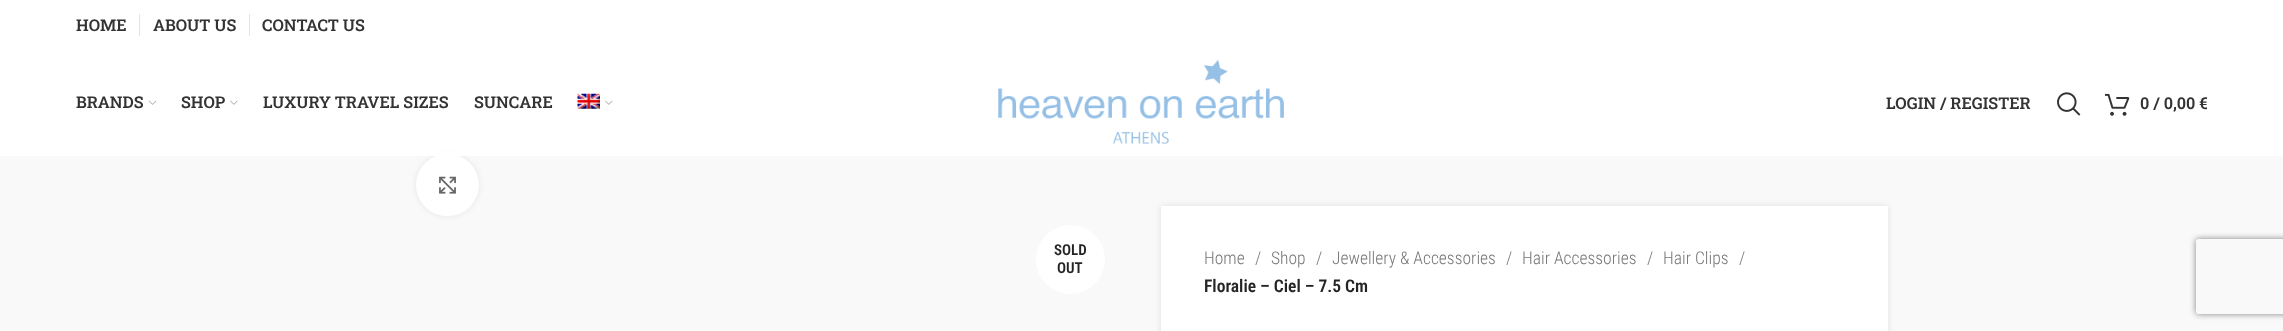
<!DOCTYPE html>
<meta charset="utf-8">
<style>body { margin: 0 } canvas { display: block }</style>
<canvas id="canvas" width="2283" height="331"></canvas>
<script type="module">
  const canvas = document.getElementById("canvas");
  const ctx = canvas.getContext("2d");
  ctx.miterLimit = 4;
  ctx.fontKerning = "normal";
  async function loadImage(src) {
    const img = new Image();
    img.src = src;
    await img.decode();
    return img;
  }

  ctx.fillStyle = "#ffffff";
  ctx.fillRect(0, 0, 2283, 331);
  ctx.font = "600 16.25px Roboto Slab";
  ctx.fillStyle = "#333333";
  ctx.fillText("HOME", 76, 31);
  ctx.fillStyle = "#e4e4e4";
  ctx.fillRect(139, 14, 1, 22);
  ctx.fillStyle = "#333333";
  ctx.fillText("ABOUT US", 153, 31);
  ctx.fillStyle = "#e4e4e4";
  ctx.fillRect(249, 14, 1, 22);
  ctx.fillStyle = "#333333";
  ctx.fillText("CONTACT US", 262, 31);
  ctx.fillStyle = "#f9f9f9";
  ctx.fillRect(0, 156, 2283, 175);
  ctx.fillStyle = "rgba(0, 0, 0, 0.08)";
  ctx.filter = "blur(3px)";
  ctx.beginPath();
  ctx.roundRect(416, 154, 63, 62, 31);
  ctx.fill();
  ctx.filter = "none";
  ctx.fillStyle = "#ffffff";
  ctx.beginPath();
  ctx.roundRect(416, 154, 63, 62, 31);
  ctx.fill();
  ctx.fillRect(429, 151, 37, 5);
  ctx.fillStyle = "#333333";
  ctx.fillText("BRANDS", 76, 108);
  ctx.drawImage(await loadImage("img1.png"), 149, 100, 8, 5);
  ctx.fillText("SHOP", 181, 108);
  ctx.drawImage(await loadImage("img2.png"), 230, 100, 8, 5);
  ctx.fillText("LUXURY TRAVEL SIZES", 263, 108);
  ctx.fillText("SUNCARE", 474, 108);
  ctx.drawImage(await loadImage("img3.png"), 577, 93, 23, 16);
  ctx.drawImage(await loadImage("img2.png"), 605, 100, 8, 5);
  ctx.drawImage(await loadImage("img4.png"), 998, 59, 286, 86);
  ctx.fillText("LOGIN / REGISTER", 1886, 109);
  ctx.drawImage(await loadImage("img5.png"), 2057, 92, 24, 24);
  ctx.drawImage(await loadImage("img6.png"), 2105, 93, 25, 23);
  ctx.fillText("0 / 0,00 €", 2140, 109);
  ctx.drawImage(await loadImage("img7.png"), 439, 176, 17, 18);
  ctx.fillStyle = "#ffffff";
  ctx.beginPath();
  ctx.arc(1070.5, 259.5, 34.5, 0, Math.PI * 2);
  ctx.fill();
  ctx.font = "600 15px Roboto Condensed";
  ctx.fillStyle = "#242424";
  ctx.fillText("SOLD", 1054, 255);
  ctx.fillText("OUT", 1057, 273);
  ctx.fillStyle = "rgba(0, 0, 0, 0.1)";
  ctx.filter = "blur(3px)";
  ctx.beginPath();
  ctx.rect(1161, 206, 727, 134);
  ctx.fill();
  ctx.filter = "none";
  ctx.fillStyle = "#ffffff";
  ctx.fillRect(1161, 206, 727, 125);
  ctx.font = "300 17.5px Roboto Condensed";
  ctx.fillStyle = "#767676";
  ctx.fillText("Home", 1204, 264);
  ctx.fillText("/", 1255, 264);
  ctx.fillText("Shop", 1271, 264);
  ctx.fillText("/", 1316, 264);
  ctx.fillText("Jewellery & Accessories", 1332, 264);
  ctx.fillText("/", 1506, 264);
  ctx.fillText("Hair Accessories", 1522, 264);
  ctx.fillText("/", 1647, 264);
  ctx.fillText("Hair Clips", 1663, 264);
  ctx.fillText("/", 1739, 264);
  ctx.font = "600 17.5px Roboto Condensed";
  ctx.fillStyle = "#242424";
  ctx.fillText("Floralie – Ciel – 7.5 Cm", 1204, 292);
  ctx.save();
  ctx.beginPath();
  ctx.moveTo(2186, 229);
  ctx.lineTo(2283, 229);
  ctx.lineTo(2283, 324);
  ctx.lineTo(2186, 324);
  ctx.closePath();
  ctx.moveTo(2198.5, 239);
  ctx.lineTo(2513.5, 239);
  ctx.bezierCurveTo(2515, 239, 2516, 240, 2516, 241.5);
  ctx.lineTo(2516, 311.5);
  ctx.bezierCurveTo(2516, 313, 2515, 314, 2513.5, 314);
  ctx.lineTo(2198.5, 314);
  ctx.bezierCurveTo(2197, 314, 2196, 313, 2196, 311.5);
  ctx.lineTo(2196, 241.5);
  ctx.bezierCurveTo(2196, 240, 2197, 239, 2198.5, 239);
  ctx.closePath();
  ctx.clip("evenodd");
  ctx.fillStyle = "#808080";
  ctx.filter = "blur(3px)";
  ctx.beginPath();
  ctx.roundRect(2196, 239, 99, 75, 2.5);
  ctx.fill();
  ctx.filter = "none";
  ctx.restore();
</script>
